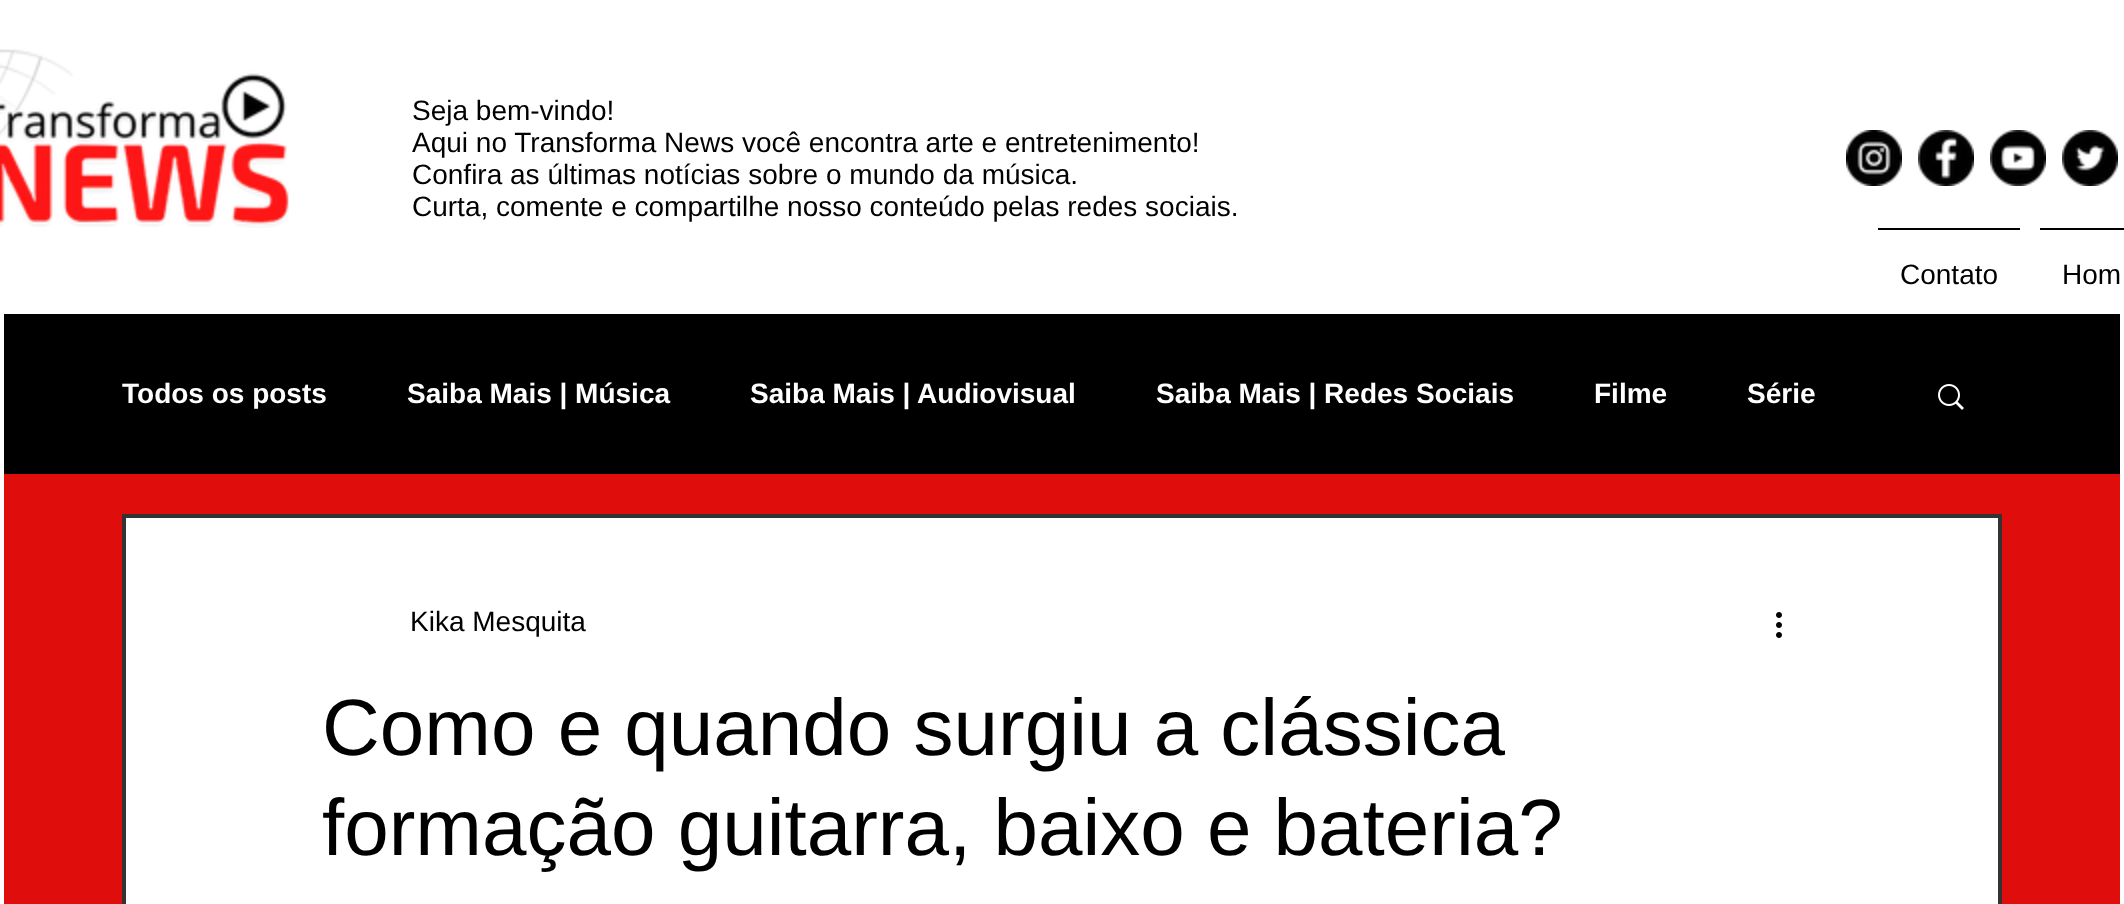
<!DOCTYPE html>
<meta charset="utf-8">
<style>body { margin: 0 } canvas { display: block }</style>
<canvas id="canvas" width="2124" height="904"></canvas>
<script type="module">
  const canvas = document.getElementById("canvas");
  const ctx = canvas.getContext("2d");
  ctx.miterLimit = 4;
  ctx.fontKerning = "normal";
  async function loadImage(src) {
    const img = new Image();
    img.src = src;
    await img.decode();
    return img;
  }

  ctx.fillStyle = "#ffffff";
  ctx.fillRect(0, 0, 2124, 904);
  ctx.drawImage(await loadImage("img1.png"), 0, 49, 289, 179);
  ctx.font = "28px Liberation Sans";
  ctx.fillStyle = "#000000";
  ctx.fillText("Seja bem-vindo!", 412, 120);
  ctx.fillText("Aqui no Transforma News você encontra arte e entretenimento!", 412, 152);
  ctx.fillText("Confira as últimas notícias sobre o mundo da música.", 412, 184);
  ctx.fillText("Curta, comente e compartilhe nosso conteúdo pelas redes sociais.", 412, 216);
  ctx.drawImage(await loadImage("img2.png"), 1846, 130, 56, 56);
  ctx.drawImage(await loadImage("img3.png"), 1918, 130, 56, 56);
  ctx.drawImage(await loadImage("img4.png"), 1990, 130, 56, 56);
  ctx.drawImage(await loadImage("img5.png"), 2062, 130, 56, 56);
  ctx.fillRect(1878, 228, 142, 2);
  ctx.fillText("Contato", 1900, 284);
  ctx.fillRect(2040, 228, 84, 2);
  ctx.fillText("Hom", 2062, 284);
  ctx.fillStyle = "#e00d0d";
  ctx.fillRect(4, 474, 2116, 430);
  ctx.fillStyle = "#000000";
  ctx.fillRect(4, 314, 2116, 160);
  ctx.font = "bold 28px Liberation Sans";
  ctx.fillStyle = "#ffffff";
  ctx.fillText("Todos os posts", 122, 403);
  ctx.fillText("Saiba Mais | Música", 407, 403);
  ctx.fillText("Saiba Mais | Audiovisual", 750, 403);
  ctx.fillText("Saiba Mais | Redes Sociais", 1156, 403);
  ctx.fillText("Filme", 1594, 403);
  ctx.fillText("Série", 1747, 403);
  ctx.drawImage(await loadImage("img6.png"), 1938, 384, 26, 26);
  ctx.beginPath();
  ctx.rect(124, 516, 1876, 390);
  ctx.fill();
  ctx.strokeStyle = "#333333";
  ctx.lineWidth = 4;
  ctx.stroke();
  ctx.font = "28px Liberation Sans";
  ctx.fillStyle = "#000000";
  ctx.fillText("Kika Mesquita", 410, 631);
  ctx.drawImage(await loadImage("img7.png"), 1776, 612, 6, 26);
  ctx.font = "80px Liberation Sans";
  ctx.fillText("Como e quando surgiu a clássica", 322, 755);
  ctx.fillText("formação guitarra, baixo e bateria?", 322, 855);
</script>
